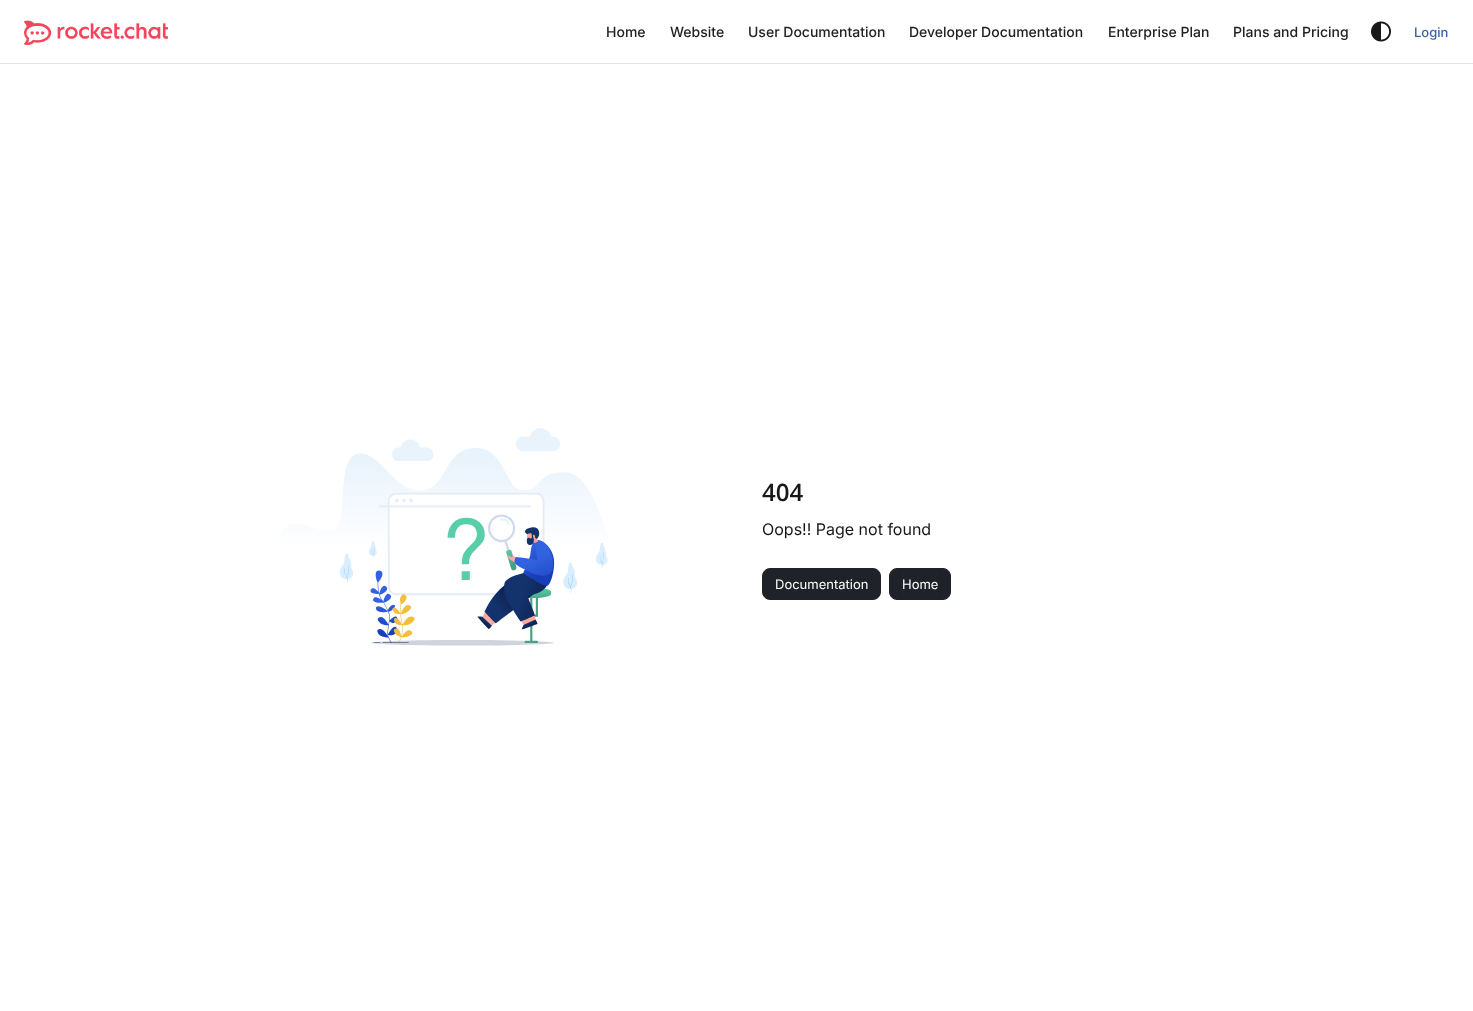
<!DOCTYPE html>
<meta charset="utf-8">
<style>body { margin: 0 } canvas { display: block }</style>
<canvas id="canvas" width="1473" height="1011"></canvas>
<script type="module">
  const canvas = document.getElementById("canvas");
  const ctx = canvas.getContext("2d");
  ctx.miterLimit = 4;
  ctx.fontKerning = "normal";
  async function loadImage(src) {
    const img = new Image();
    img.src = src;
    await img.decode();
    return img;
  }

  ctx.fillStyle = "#ffffff";
  ctx.fillRect(0, 0, 1473, 1011);
  ctx.drawImage(await loadImage("img1.png"), 24, 20, 144, 25);
  ctx.font = "500 14px Inter";
  ctx.fillStyle = "#222222";
  ctx.fillText("Home", 606, 37);
  ctx.fillText("Website", 670, 37);
  ctx.fillText("User Documentation", 748, 37);
  ctx.fillText("Developer Documentation", 909, 37);
  ctx.fillText("Enterprise Plan", 1108, 37);
  ctx.fillText("Plans and Pricing", 1233, 37);
  ctx.drawImage(await loadImage("img2.png"), 1371, 21, 20, 21);
  ctx.font = "500 13px Inter";
  ctx.fillStyle = "#3b639f";
  ctx.fillText("Login", 1414, 37);
  ctx.fillStyle = "#e4e4e7";
  ctx.fillRect(0, 63, 1473, 1);
  ctx.drawImage(await loadImage("img3.png"), 281, 428, 327, 218);
  ctx.font = "600 24px Open Sans";
  ctx.fillStyle = "#18181b";
  ctx.fillText("404", 762, 501);
  ctx.font = "16px Inter";
  ctx.fillText("Oops!! Page not found", 762, 535);
  ctx.fillStyle = "#1f2329";
  ctx.beginPath();
  ctx.roundRect(762.5, 568.5, 118, 31, 7.5);
  ctx.fill();
  ctx.strokeStyle = "#1f2329";
  ctx.stroke();
  ctx.font = "13px Inter";
  ctx.fillStyle = "#ffffff";
  ctx.fillText("Documentation", 775, 589);
  ctx.fillStyle = "#1f2329";
  ctx.beginPath();
  ctx.roundRect(889.5, 568.5, 61, 31, 7.5);
  ctx.fill();
  ctx.stroke();
  ctx.fillStyle = "#ffffff";
  ctx.fillText("Home", 902, 589);
</script>
